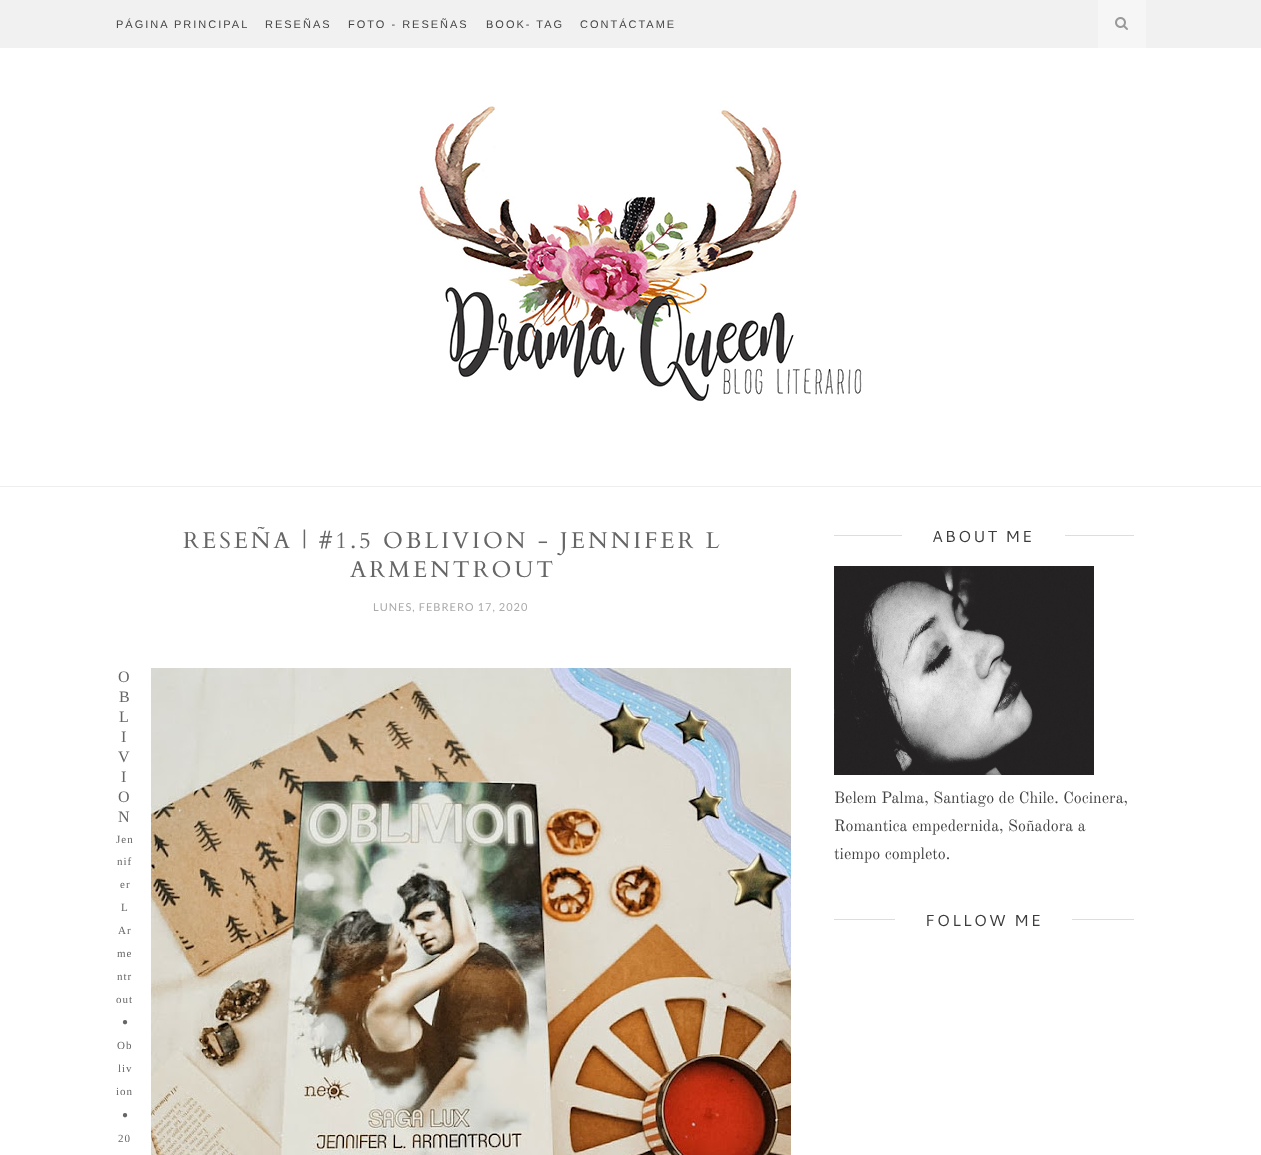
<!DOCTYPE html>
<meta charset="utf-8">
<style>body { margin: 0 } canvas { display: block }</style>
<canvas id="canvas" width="1261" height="1155"></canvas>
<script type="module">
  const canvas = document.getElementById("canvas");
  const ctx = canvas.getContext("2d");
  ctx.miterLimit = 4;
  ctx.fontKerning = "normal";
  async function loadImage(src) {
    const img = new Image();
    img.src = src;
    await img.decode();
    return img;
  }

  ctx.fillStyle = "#ffffff";
  ctx.fillRect(0, 0, 1261, 1155);
  ctx.fillStyle = "#f1f1f1";
  ctx.fillRect(0, 0, 1261, 48);
  ctx.letterSpacing = "2px";
  ctx.font = "11px Liberation Sans";
  ctx.fillStyle = "#444444";
  ctx.fillText("PÁGINA PRINCIPAL", 116, 28);
  ctx.fillText("RESEÑAS", 265, 28);
  ctx.fillText("FOTO - RESEÑAS", 348, 28);
  ctx.fillText("BOOK- TAG", 486, 28);
  ctx.fillText("CONTÁCTAME", 580, 28);
  ctx.fillStyle = "#f6f6f6";
  ctx.fillRect(1098, 0, 48, 48);
  ctx.drawImage(await loadImage("img1.png"), 1115, 17, 13, 13);
  ctx.fillStyle = "#eeeeee";
  ctx.fillRect(0, 486, 1261, 1);
  ctx.drawImage(await loadImage("img2.png"), 419, 106, 443, 296);
  ctx.save();
  ctx.beginPath();
  ctx.rect(116, 527, 1030, 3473);
  ctx.clip();
  ctx.letterSpacing = "3px";
  ctx.font = "23px Cardo";
  ctx.fillStyle = "#666666";
  ctx.fillText("RESEÑA | #1.5 OBLIVION - JENNIFER L", 183, 548);
  ctx.restore();
  ctx.letterSpacing = "3px";
  ctx.font = "23px Cardo";
  ctx.fillStyle = "#666666";
  ctx.fillText("ARMENTROUT", 350, 577);
  ctx.letterSpacing = "1px";
  ctx.font = "11px Lato";
  ctx.fillStyle = "#aaaaaa";
  ctx.fillText("LUNES, FEBRERO 17, 2020", 373, 611);
  ctx.letterSpacing = "2px";
  ctx.font = "16px Liberation Serif";
  ctx.fillStyle = "#666666";
  ctx.fillText("O", 118, 682);
  ctx.drawImage(await loadImage("img3.png"), 151, 668, 640, 487);
  ctx.fillText("B", 119, 702);
  ctx.fillText("L", 119, 722);
  ctx.fillText("I", 121, 742);
  ctx.fillText("V", 118, 762);
  ctx.fillText("I", 121, 782);
  ctx.fillText("O", 118, 802);
  ctx.fillText("N", 118, 822);
  ctx.letterSpacing = "1px";
  ctx.font = "11px Liberation Serif";
  ctx.fillText("Jen", 116, 843);
  ctx.fillText("nif", 117, 865);
  ctx.fillText("er", 120, 888);
  ctx.fillText("L", 121, 911);
  ctx.fillText("Ar", 118, 934);
  ctx.fillText("me", 117, 957);
  ctx.fillText("ntr", 117, 980);
  ctx.fillText("out", 116, 1003);
  ctx.letterSpacing = "0px";
  ctx.font = "10px Liberation Sans";
  ctx.fillText("●", 122, 1025);
  ctx.letterSpacing = "1px";
  ctx.font = "11px Liberation Serif";
  ctx.fillText("Ob", 117, 1049);
  ctx.fillText("liv", 118, 1072);
  ctx.fillText("ion", 116, 1095);
  ctx.letterSpacing = "0px";
  ctx.font = "10px Liberation Sans";
  ctx.fillText("●", 122, 1118);
  ctx.letterSpacing = "1px";
  ctx.font = "11px Liberation Serif";
  ctx.fillText("20", 118, 1142);
  ctx.fillStyle = "#dddddd";
  ctx.fillRect(834, 535, 300, 1);
  ctx.fillStyle = "#ffffff";
  ctx.fillRect(902, 535, 163, 1);
  ctx.letterSpacing = "2px";
  ctx.font = "16px Cantarell";
  ctx.fillStyle = "#3b3b3b";
  ctx.fillText("ABOUT ME", 932, 542);
  ctx.drawImage(await loadImage("img4.png"), 834, 566, 260, 209);
  ctx.letterSpacing = "0px";
  ctx.font = "16px Old Standard TT";
  ctx.fillStyle = "#444444";
  ctx.fillText("Belem Palma, Santiago de Chile. Cocinera,", 834, 803);
  ctx.fillText("Romantica empedernida, Soñadora a", 834, 831);
  ctx.fillText("tiempo completo.", 834, 859);
  ctx.fillStyle = "#dddddd";
  ctx.fillRect(834, 919, 300, 1);
  ctx.fillStyle = "#ffffff";
  ctx.fillRect(895, 919, 177, 1);
  ctx.letterSpacing = "2px";
  ctx.font = "16px Cantarell";
  ctx.fillStyle = "#3b3b3b";
  ctx.fillText("FOLLOW ME", 925, 926);
</script>
